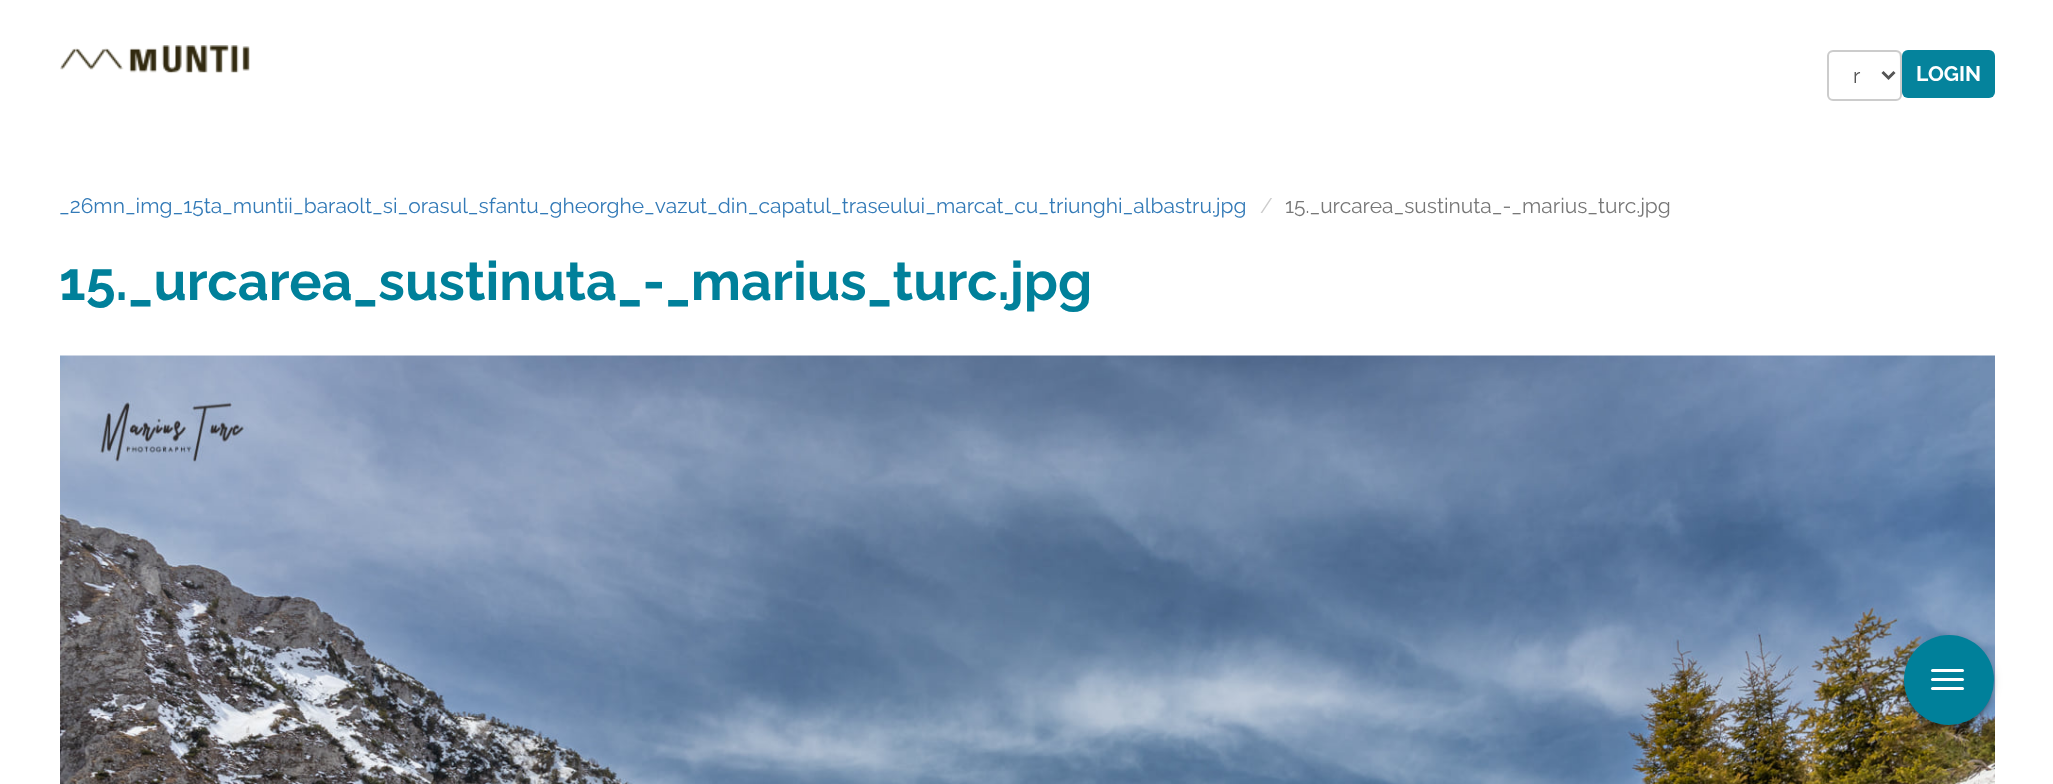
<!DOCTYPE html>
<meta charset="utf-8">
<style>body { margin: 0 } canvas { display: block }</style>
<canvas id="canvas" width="2053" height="784"></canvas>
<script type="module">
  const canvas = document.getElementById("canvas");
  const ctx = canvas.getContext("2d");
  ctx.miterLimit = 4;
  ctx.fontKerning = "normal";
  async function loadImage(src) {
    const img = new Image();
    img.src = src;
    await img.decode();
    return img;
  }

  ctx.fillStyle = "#ffffff";
  ctx.fillRect(0, 0, 2053, 784);
  ctx.drawImage(await loadImage("img1.png"), 60, 45, 190, 29);
  ctx.fillStyle = "#ececec";
  ctx.beginPath();
  ctx.moveTo(1833, 52);
  ctx.lineTo(1875, 52);
  ctx.bezierCurveTo(1901, 52, 1900, 47, 1900, 70);
  ctx.lineTo(1900, 97);
  ctx.bezierCurveTo(1901, 96, 1901, 95, 1901, 94);
  ctx.lineTo(1901, 56);
  ctx.bezierCurveTo(1901, 53, 1899, 51, 1896, 51);
  ctx.lineTo(1834, 51);
  ctx.bezierCurveTo(1832, 51, 1830, 52, 1829, 54);
  ctx.bezierCurveTo(1830, 53, 1832, 52, 1833, 52);
  ctx.closePath();
  ctx.fill();
  ctx.beginPath();
  ctx.roundRect(1828, 51, 73, 49, 5);
  ctx.strokeStyle = "#cccccc";
  ctx.lineWidth = 2;
  ctx.stroke();
  ctx.beginPath();
  ctx.moveTo(1882.5, 72);
  ctx.lineTo(1888.5, 78);
  ctx.lineTo(1894.5, 72);
  ctx.strokeStyle = "#555555";
  ctx.lineWidth = 3;
  ctx.stroke();
  ctx.font = "21px Raleway";
  ctx.fillStyle = "#555555";
  ctx.fillText("r", 1853, 83);
  ctx.fillStyle = "#05839c";
  ctx.beginPath();
  ctx.roundRect(1902, 50, 93, 48, 6);
  ctx.fill();
  ctx.font = "bold 21px Raleway";
  ctx.fillStyle = "#ffffff";
  ctx.fillText("LOGIN", 1916, 81);
  ctx.font = "21px Raleway";
  ctx.fillStyle = "#337ab7";
  ctx.fillText("_26mn_img_15ta_muntii_baraolt_si_orasul_sfantu_gheorghe_vazut_din_capatul_traseului_marcat_cu_triunghi_albastru.jpg", 59, 213);
  ctx.fillStyle = "#cccccc";
  ctx.fillText("/", 1260, 213);
  ctx.fillStyle = "#777777";
  ctx.fillText("15._urcarea_sustinuta_-_marius_turc.jpg", 1285, 213);
  ctx.font = "bold 54px Raleway";
  ctx.fillStyle = "#00809a";
  ctx.fillText("15._urcarea_sustinuta_-_marius_turc.jpg", 59, 300);
  ctx.drawImage(await loadImage("img2.png"), 60, 355, 1935, 429);
  ctx.fillStyle = "rgba(0, 0, 0, 0.2)";
  ctx.filter = "blur(1px)";
  ctx.beginPath();
  ctx.roundRect(1905, 641, 87, 87, 43.5);
  ctx.fill();
  ctx.filter = "none";
  ctx.fillStyle = "rgba(0, 0, 0, 0.12)";
  ctx.filter = "blur(5px)";
  ctx.beginPath();
  ctx.roundRect(1904, 636, 90, 90, 45);
  ctx.fill();
  ctx.filter = "none";
  ctx.fillStyle = "rgba(0, 0, 0, 0.14)";
  ctx.filter = "blur(2px)";
  ctx.beginPath();
  ctx.roundRect(1904, 639, 90, 90, 45);
  ctx.fill();
  ctx.filter = "none";
  ctx.fillStyle = "#00809a";
  ctx.beginPath();
  ctx.arc(1949, 680, 45, 0, Math.PI * 2);
  ctx.fill();
  ctx.fillStyle = "#ffffff";
  ctx.beginPath();
  ctx.roundRect(1931, 669, 33, 3, 1.5);
  ctx.fill();
  ctx.beginPath();
  ctx.roundRect(1931, 678, 33, 3, 1.5);
  ctx.fill();
  ctx.beginPath();
  ctx.roundRect(1931, 687, 33, 3, 1.5);
  ctx.fill();
</script>
